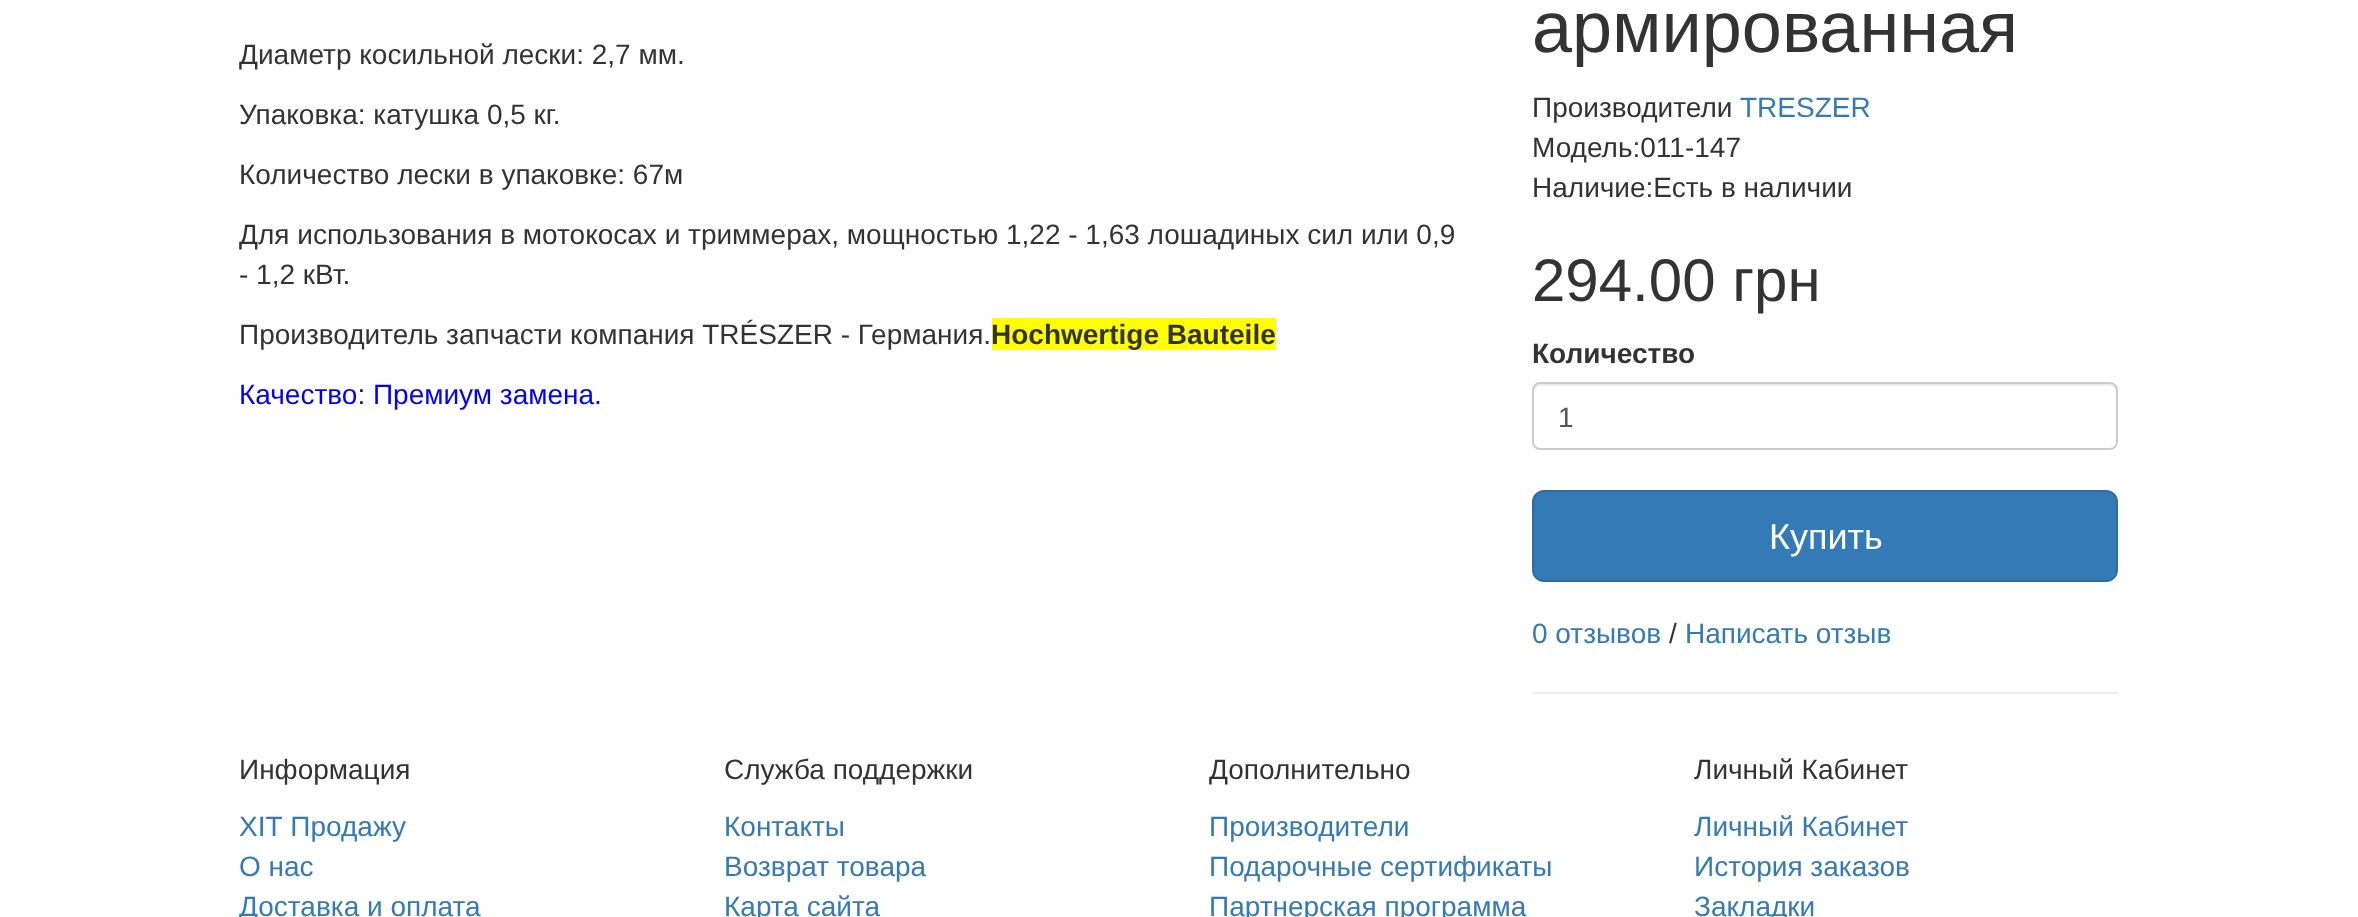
<!DOCTYPE html>
<meta charset="utf-8">
<style>body { margin: 0 } canvas { display: block }</style>
<canvas id="canvas" width="2358" height="917"></canvas>
<script type="module">
  const canvas = document.getElementById("canvas");
  const ctx = canvas.getContext("2d");
  ctx.miterLimit = 4;
  ctx.fontKerning = "normal";

  ctx.fillStyle = "#ffffff";
  ctx.fillRect(0, 0, 2358, 917);
  ctx.font = "28px Liberation Sans";
  ctx.fillStyle = "#333333";
  ctx.fillText("Диаметр косильной лески: 2,7 мм.", 239, 64);
  ctx.fillText("Упаковка: катушка 0,5 кг.", 239, 124);
  ctx.fillText("Количество лески в упаковке: 67м", 239, 184);
  ctx.fillText("Для использования в мотокосах и триммерах, мощностью 1,22 - 1,63 лошадиных сил или 0,9", 239, 244);
  ctx.fillText("- 1,2 кВт.", 239, 284);
  ctx.fillText("Производитель запчасти компания TRÉSZER - Германия.", 239, 344);
  ctx.fillStyle = "#ffff00";
  ctx.fillRect(992, 318, 284, 32);
  ctx.font = "bold 28px Liberation Sans";
  ctx.fillStyle = "#333333";
  ctx.fillText("Hochwertige Bauteile", 991, 344);
  ctx.font = "28px Liberation Sans";
  ctx.fillStyle = "#0000ff";
  ctx.fillText("Качество: Премиум замена.", 239, 404);
  ctx.font = "72px Liberation Sans";
  ctx.fillStyle = "#333333";
  ctx.fillText("армированная", 1532, 52);
  ctx.font = "28px Liberation Sans";
  ctx.fillText("Производители", 1532, 117);
  ctx.fillStyle = "#337ab7";
  ctx.fillText("TRESZER", 1740, 117);
  ctx.fillStyle = "#333333";
  ctx.fillText("Модель:011-147", 1532, 157);
  ctx.fillText("Наличие:Есть в наличии", 1532, 197);
  ctx.font = "60px Liberation Sans";
  ctx.fillText("294.00 грн", 1532, 301);
  ctx.font = "bold 28px Liberation Sans";
  ctx.fillText("Количество", 1532, 363);
  ctx.fillStyle = "#ececec";
  ctx.beginPath();
  ctx.moveTo(1540, 386);
  ctx.lineTo(2110, 386);
  ctx.bezierCurveTo(2113, 386, 2116, 389, 2116, 392);
  ctx.bezierCurveTo(2116, 388, 2115, 384, 2110, 384);
  ctx.lineTo(1540, 384);
  ctx.bezierCurveTo(1535, 384, 1534, 388, 1534, 392);
  ctx.bezierCurveTo(1534, 389, 1537, 386, 1540, 386);
  ctx.closePath();
  ctx.fill();
  ctx.beginPath();
  ctx.roundRect(1533, 383, 584, 66, 7);
  ctx.strokeStyle = "#cccccc";
  ctx.lineWidth = 2;
  ctx.stroke();
  ctx.font = "28px Liberation Sans";
  ctx.fillStyle = "#555555";
  ctx.fillText("1", 1558, 427);
  ctx.fillStyle = "#337ab7";
  ctx.beginPath();
  ctx.roundRect(1533, 491, 584, 90, 11);
  ctx.fill();
  ctx.strokeStyle = "#2e6da4";
  ctx.stroke();
  ctx.font = "36px Liberation Sans";
  ctx.fillStyle = "#ffffff";
  ctx.fillText("Купить", 1769, 549);
  ctx.font = "28px Liberation Sans";
  ctx.fillStyle = "#337ab7";
  ctx.fillText("0 отзывов", 1532, 643);
  ctx.fillStyle = "#333333";
  ctx.fillText("/", 1669, 643);
  ctx.fillStyle = "#337ab7";
  ctx.fillText("Написать отзыв", 1685, 643);
  ctx.fillStyle = "#eeeeee";
  ctx.fillRect(1532, 692, 586, 2);
  ctx.fillStyle = "#333333";
  ctx.fillText("Информация", 239, 779);
  ctx.fillStyle = "#337ab7";
  ctx.fillText("ХІТ Продажу", 239, 836);
  ctx.fillText("О нас", 239, 876);
  ctx.fillText("Доставка и оплата", 239, 916);
  ctx.fillStyle = "#333333";
  ctx.fillText("Служба поддержки", 724, 779);
  ctx.fillStyle = "#337ab7";
  ctx.fillText("Контакты", 724, 836);
  ctx.fillText("Возврат товара", 724, 876);
  ctx.fillText("Карта сайта", 724, 916);
  ctx.fillStyle = "#333333";
  ctx.fillText("Дополнительно", 1209, 779);
  ctx.fillStyle = "#337ab7";
  ctx.fillText("Производители", 1209, 836);
  ctx.fillText("Подарочные сертификаты", 1209, 876);
  ctx.fillText("Партнерская программа", 1209, 916);
  ctx.fillStyle = "#333333";
  ctx.fillText("Личный Кабинет", 1694, 779);
  ctx.fillStyle = "#337ab7";
  ctx.fillText("Личный Кабинет", 1694, 836);
  ctx.fillText("История заказов", 1694, 876);
  ctx.fillText("Закладки", 1694, 916);
</script>
